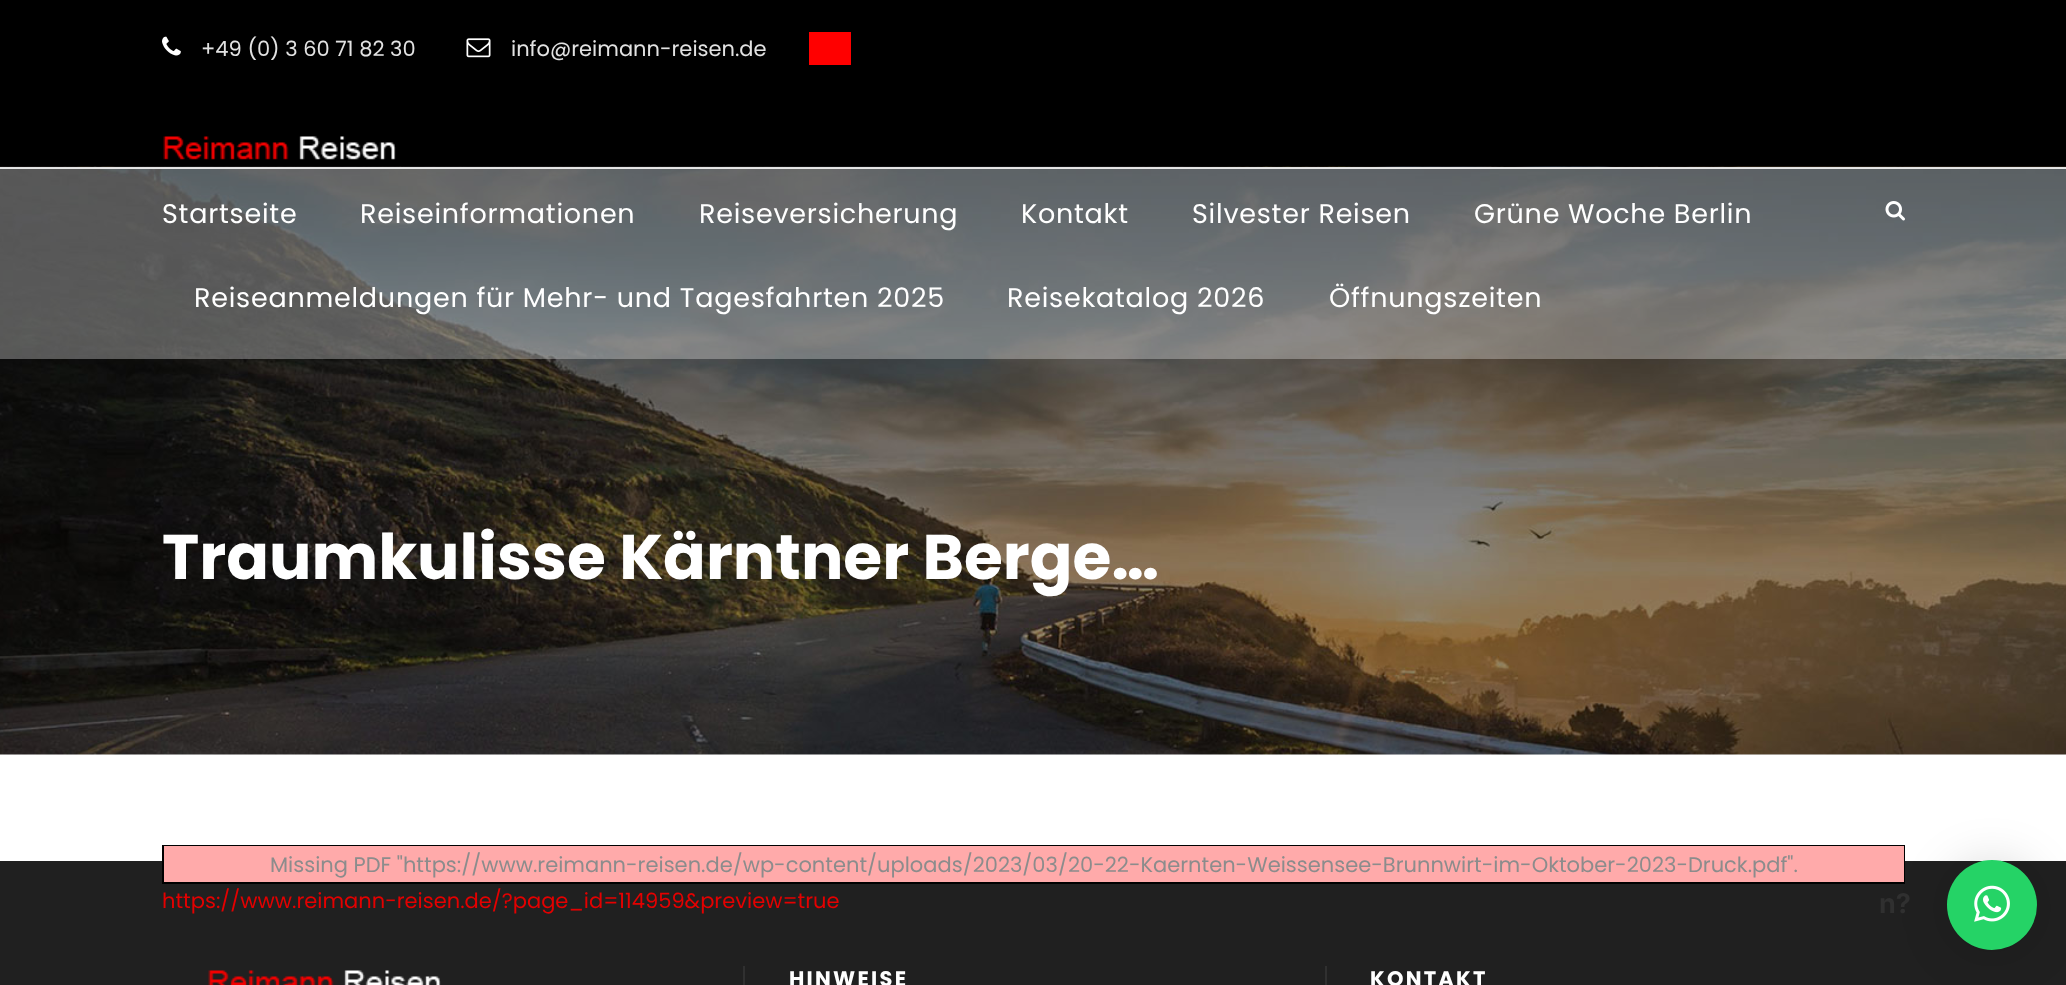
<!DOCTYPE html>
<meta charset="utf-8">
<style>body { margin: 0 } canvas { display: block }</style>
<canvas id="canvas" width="2066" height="985"></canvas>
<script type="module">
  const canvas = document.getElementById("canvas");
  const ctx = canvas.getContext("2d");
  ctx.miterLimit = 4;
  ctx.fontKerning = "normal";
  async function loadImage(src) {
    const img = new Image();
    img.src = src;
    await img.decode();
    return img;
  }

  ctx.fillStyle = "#ffffff";
  ctx.fillRect(0, 0, 2066, 985);
  ctx.fillStyle = "#000000";
  ctx.fillRect(0, 0, 2066, 167);
  ctx.drawImage(await loadImage("img1.png"), 163, 136, 233, 24);
  ctx.drawImage(await loadImage("img2.png"), 162, 36, 19, 20);
  ctx.font = "21px Poppins";
  ctx.fillStyle = "#e2e2e2";
  ctx.fillText("+49 (0) 3 60 71 82 30", 201, 56);
  ctx.drawImage(await loadImage("img3.png"), 466, 38, 25, 20);
  ctx.fillText("info@reimann-reisen.de", 511, 56);
  ctx.fillStyle = "#ff0000";
  ctx.fillRect(809, 32, 42, 33);
  ctx.drawImage(await loadImage("img5.png"), 0, 166, 2066, 589);
  ctx.fillStyle = "#e1e1e1";
  ctx.fillRect(0, 167, 2066, 2);
  ctx.fillStyle = "rgba(244, 244, 244, 0.33)";
  ctx.fillRect(0, 168, 2066, 191);
  ctx.letterSpacing = "0.75px";
  ctx.font = "27px Poppins";
  ctx.fillStyle = "#ffffff";
  ctx.fillText("Startseite", 162, 223);
  ctx.fillText("Reiseinformationen", 360, 223);
  ctx.fillText("Reiseversicherung", 699, 223);
  ctx.fillText("Kontakt", 1021, 223);
  ctx.fillText("Silvester Reisen", 1192, 223);
  ctx.fillText("Grüne Woche Berlin", 1474, 223);
  ctx.fillText("Reiseanmeldungen für Mehr- und Tagesfahrten 2025", 194, 307);
  ctx.fillText("Reisekatalog 2026", 1007, 307);
  ctx.fillText("Öffnungszeiten", 1329, 307);
  ctx.drawImage(await loadImage("img4.png"), 1885, 201, 20, 20);
  ctx.letterSpacing = "0px";
  ctx.font = "bold 63px Poppins";
  ctx.fillText("Traumkulisse Kärntner Berge…", 162, 579);
  ctx.fillStyle = "#202020";
  ctx.fillRect(0, 861, 2066, 124);
  ctx.strokeStyle = "#000000";
  ctx.lineWidth = 2;
  ctx.strokeRect(163, 846, 1741, 37);
  ctx.fillStyle = "#ffaaaa";
  ctx.fillRect(164, 846, 1740, 36);
  ctx.font = "21px Poppins";
  ctx.fillStyle = "#8c8c8c";
  ctx.fillText("Missing PDF \"https://www.reimann-reisen.de/wp-content/uploads/2023/03/20-22-Kaernten-Weissensee-Brunnwirt-im-Oktober-2023-Druck.pdf\".", 270, 872);
  ctx.fillStyle = "#e40000";
  ctx.fillText("https://www.reimann-reisen.de/?page_id=114959&preview=true", 162, 908);
  ctx.drawImage(await loadImage("img6.png"), 208, 970, 233, 15);
  ctx.fillStyle = "#303030";
  ctx.fillRect(743, 966, 2, 19);
  ctx.letterSpacing = "2.25px";
  ctx.font = "bold 21px Poppins";
  ctx.fillStyle = "#ffffff";
  ctx.fillText("HINWEISE", 789, 986);
  ctx.fillStyle = "#303030";
  ctx.fillRect(1325, 966, 2, 19);
  ctx.fillStyle = "#ffffff";
  ctx.fillText("KONTAKT", 1370, 986);
  ctx.fillStyle = "rgba(0, 0, 0, 0.16)";
  ctx.filter = "blur(24px)";
  ctx.beginPath();
  ctx.roundRect(1947, 863, 90, 90, 45);
  ctx.fill();
  ctx.filter = "none";
  ctx.fillStyle = "#25d366";
  ctx.beginPath();
  ctx.arc(1992, 905, 45, 0, Math.PI * 2);
  ctx.fill();
  ctx.letterSpacing = "0px";
  ctx.font = "bold 27px Inter";
  ctx.fillStyle = "#303030";
  ctx.fillText("n?", 1879, 913);
  ctx.drawImage(await loadImage("img7.png"), 1974, 885, 36, 37);
</script>
